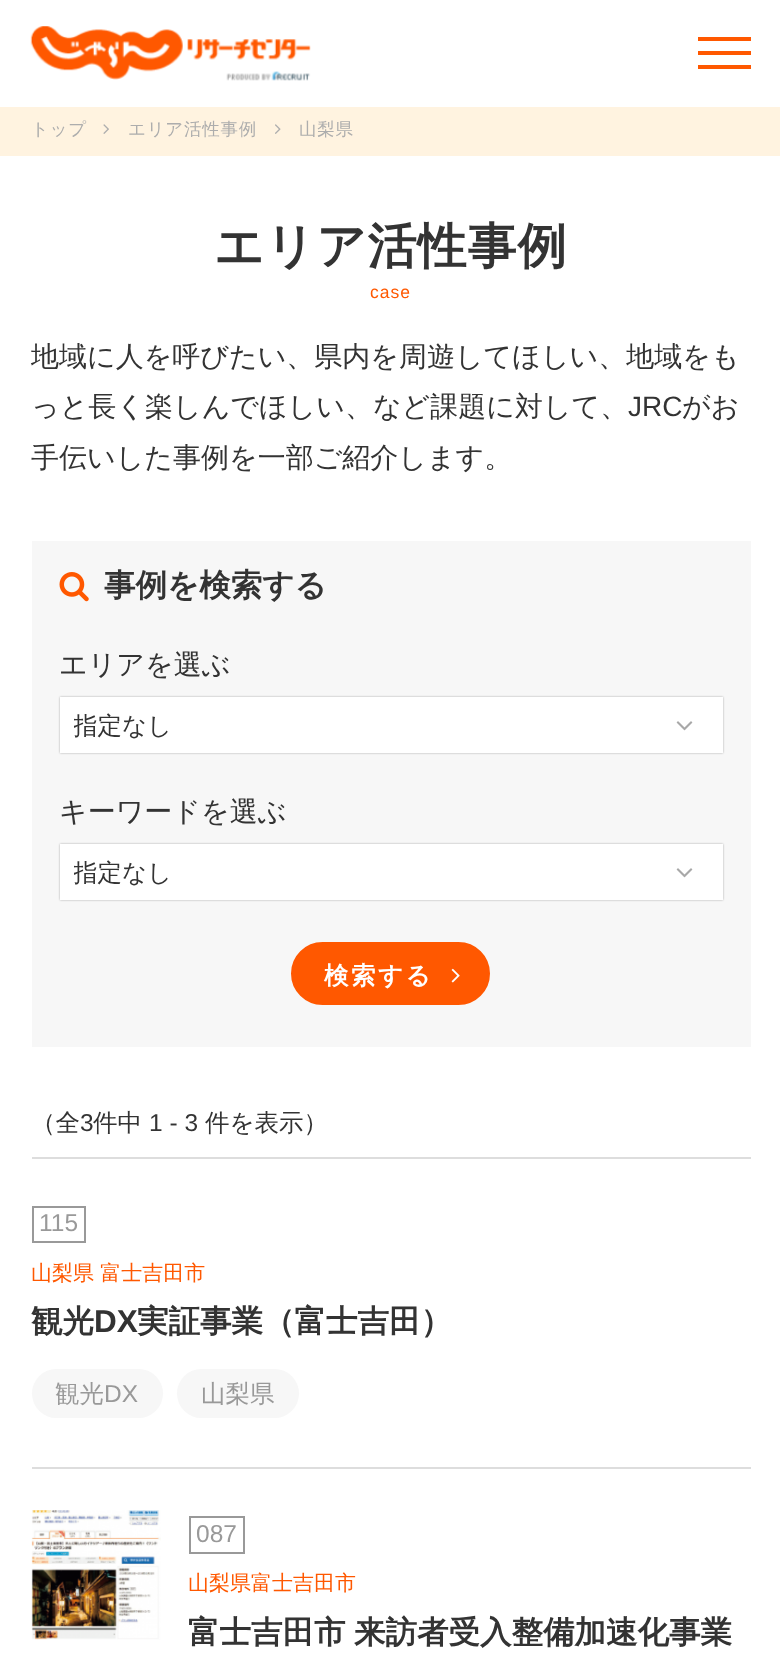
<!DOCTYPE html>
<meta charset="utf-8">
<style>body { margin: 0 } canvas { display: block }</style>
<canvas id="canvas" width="780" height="1664"></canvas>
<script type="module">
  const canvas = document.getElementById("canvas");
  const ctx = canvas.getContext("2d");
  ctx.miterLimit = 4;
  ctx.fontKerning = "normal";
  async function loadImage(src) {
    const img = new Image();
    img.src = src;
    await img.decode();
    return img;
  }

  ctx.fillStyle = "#ffffff";
  ctx.fillRect(0, 0, 780, 1664);
  ctx.drawImage(await loadImage("img1.png"), 30, 26, 281, 55);
  ctx.fillStyle = "#ff5800";
  ctx.fillRect(698, 51, 53, 4);
  ctx.fillRect(698, 37, 53, 4);
  ctx.fillRect(698, 65, 53, 4);
  ctx.fillStyle = "#fff3e0";
  ctx.fillRect(0, 107, 780, 49);
  ctx.letterSpacing = "0.75px";
  ctx.font = "500 17.5px WenQuanYi Zen Hei";
  ctx.fillStyle = "#adadad";
  ctx.fillText("トップ", 31, 135);
  ctx.drawImage(await loadImage("img2.png"), 103, 124, 6, 10);
  ctx.fillText("エリア活性事例", 128, 135);
  ctx.drawImage(await loadImage("img3.png"), 275, 124, 6, 10);
  ctx.fillText("山梨県", 299, 135);
  ctx.letterSpacing = "1px";
  ctx.font = "bold 49px WenQuanYi Zen Hei";
  ctx.fillStyle = "#333333";
  ctx.fillText("エリア活性事例", 214, 263);
  ctx.font = "17.5px Liberation Sans";
  ctx.fillStyle = "#ff5800";
  ctx.fillText("case", 370, 298);
  ctx.letterSpacing = "0px";
  ctx.font = "500 28px WenQuanYi Zen Hei";
  ctx.fillStyle = "#333333";
  ctx.fillText("地域に人を呼びたい、県内を周遊してほしい、地域をも", 31, 366);
  ctx.fillText("っと長く楽しんでほしい、など課題に対して、", 31, 416);
  ctx.font = "28px Liberation Sans";
  ctx.fillText("JRC", 628, 416);
  ctx.font = "500 28px WenQuanYi Zen Hei";
  ctx.fillText("がお", 682, 416);
  ctx.fillText("手伝いした事例を一部ご紹介します。", 31, 467);
  ctx.fillStyle = "#f7f7f7";
  ctx.fillRect(32, 541, 719, 506);
  ctx.drawImage(await loadImage("img4.png"), 59, 572, 30, 30);
  ctx.font = "bold 31.5px WenQuanYi Zen Hei";
  ctx.fillStyle = "#333333";
  ctx.fillText("事例を検索する", 104, 596);
  ctx.font = "500 28px WenQuanYi Zen Hei";
  ctx.fillText("エリアを選ぶ", 59, 674);
  ctx.fillStyle = "rgba(0, 0, 0, 0.3)";
  ctx.filter = "blur(1px)";
  ctx.beginPath();
  ctx.rect(60, 697, 663, 56);
  ctx.fill();
  ctx.filter = "none";
  ctx.fillStyle = "#ffffff";
  ctx.fillRect(60, 697, 663, 56);
  ctx.save();
  ctx.beginPath();
  ctx.rect(74, 697, 588, 56);
  ctx.clip();
  ctx.font = "500 24.5px WenQuanYi Zen Hei";
  ctx.fillStyle = "#333333";
  ctx.fillText("指定なし", 73, 734);
  ctx.restore();
  ctx.drawImage(await loadImage("img5.png"), 676, 721, 17, 10);
  ctx.fillStyle = "#333333";
  ctx.fillText("キーワードを選ぶ", 59, 821);
  ctx.fillStyle = "rgba(0, 0, 0, 0.3)";
  ctx.filter = "blur(1px)";
  ctx.beginPath();
  ctx.rect(60, 844, 663, 56);
  ctx.fill();
  ctx.filter = "none";
  ctx.fillStyle = "#ffffff";
  ctx.fillRect(60, 844, 663, 56);
  ctx.save();
  ctx.beginPath();
  ctx.rect(74, 844, 588, 56);
  ctx.clip();
  ctx.font = "500 24.5px WenQuanYi Zen Hei";
  ctx.fillStyle = "#333333";
  ctx.fillText("指定なし", 73, 881);
  ctx.restore();
  ctx.drawImage(await loadImage("img5.png"), 676, 868, 17, 10);
  ctx.fillStyle = "#ff5800";
  ctx.beginPath();
  ctx.roundRect(292, 943, 197, 61, 30.5);
  ctx.fill();
  ctx.strokeStyle = "#ff5800";
  ctx.lineWidth = 2;
  ctx.stroke();
  ctx.letterSpacing = "2.5px";
  ctx.font = "bold 24.5px WenQuanYi Zen Hei";
  ctx.fillStyle = "#ffffff";
  ctx.fillText("検索する", 324, 984);
  ctx.drawImage(await loadImage("img6.png"), 451, 968, 9, 15);
  ctx.letterSpacing = "0px";
  ctx.font = "500 24.5px WenQuanYi Zen Hei";
  ctx.fillStyle = "#333333";
  ctx.fillText("（全", 31, 1131);
  ctx.font = "24.5px Liberation Sans";
  ctx.fillText("3", 80, 1131);
  ctx.font = "500 24.5px WenQuanYi Zen Hei";
  ctx.fillText("件中", 93, 1131);
  ctx.font = "24.5px Liberation Sans";
  ctx.fillText("1 - 3", 149, 1131);
  ctx.font = "500 24.5px WenQuanYi Zen Hei";
  ctx.fillText("件を表示）", 205, 1131);
  ctx.fillStyle = "#dddddd";
  ctx.fillRect(32, 1157, 719, 2);
  ctx.strokeStyle = "#999999";
  ctx.strokeRect(33, 1207, 52, 35);
  ctx.font = "24.5px Liberation Sans";
  ctx.fillStyle = "#999999";
  ctx.fillText("115", 39, 1231);
  ctx.font = "500 21px WenQuanYi Zen Hei";
  ctx.fillStyle = "#ff5800";
  ctx.fillText("山梨県 富士吉田市", 31, 1280);
  ctx.font = "bold 31.5px WenQuanYi Zen Hei";
  ctx.fillStyle = "#333333";
  ctx.fillText("観光", 31, 1332);
  ctx.font = "bold 31.5px Liberation Sans";
  ctx.fillText("DX", 94, 1332);
  ctx.font = "bold 31.5px WenQuanYi Zen Hei";
  ctx.fillText("実証事業（富士吉田）", 137, 1332);
  ctx.fillStyle = "#f7f7f7";
  ctx.beginPath();
  ctx.roundRect(32, 1369, 131, 49, 24.5);
  ctx.fill();
  ctx.font = "500 24.5px WenQuanYi Zen Hei";
  ctx.fillStyle = "#999999";
  ctx.fillText("観光", 55, 1402);
  ctx.font = "24.5px Liberation Sans";
  ctx.fillText("DX", 104, 1402);
  ctx.fillStyle = "#f7f7f7";
  ctx.beginPath();
  ctx.roundRect(177, 1369, 122, 49, 24.5);
  ctx.fill();
  ctx.font = "500 24.5px WenQuanYi Zen Hei";
  ctx.fillStyle = "#999999";
  ctx.fillText("山梨県", 201, 1402);
  ctx.fillStyle = "#dddddd";
  ctx.fillRect(32, 1467, 719, 2);
  ctx.drawImage(await loadImage("img7.png"), 31, 1510, 130, 130);
  ctx.strokeRect(190, 1517, 54, 36);
  ctx.font = "24.5px Liberation Sans";
  ctx.fillStyle = "#999999";
  ctx.fillText("087", 196, 1542);
  ctx.font = "500 21px WenQuanYi Zen Hei";
  ctx.fillStyle = "#ff5800";
  ctx.fillText("山梨県富士吉田市", 188, 1590);
  ctx.wordSpacing = "-1px";
  ctx.font = "bold 31.5px WenQuanYi Zen Hei";
  ctx.fillStyle = "#333333";
  ctx.fillText("富士吉田市 来訪者受入整備加速化事業", 188, 1643);
</script>
